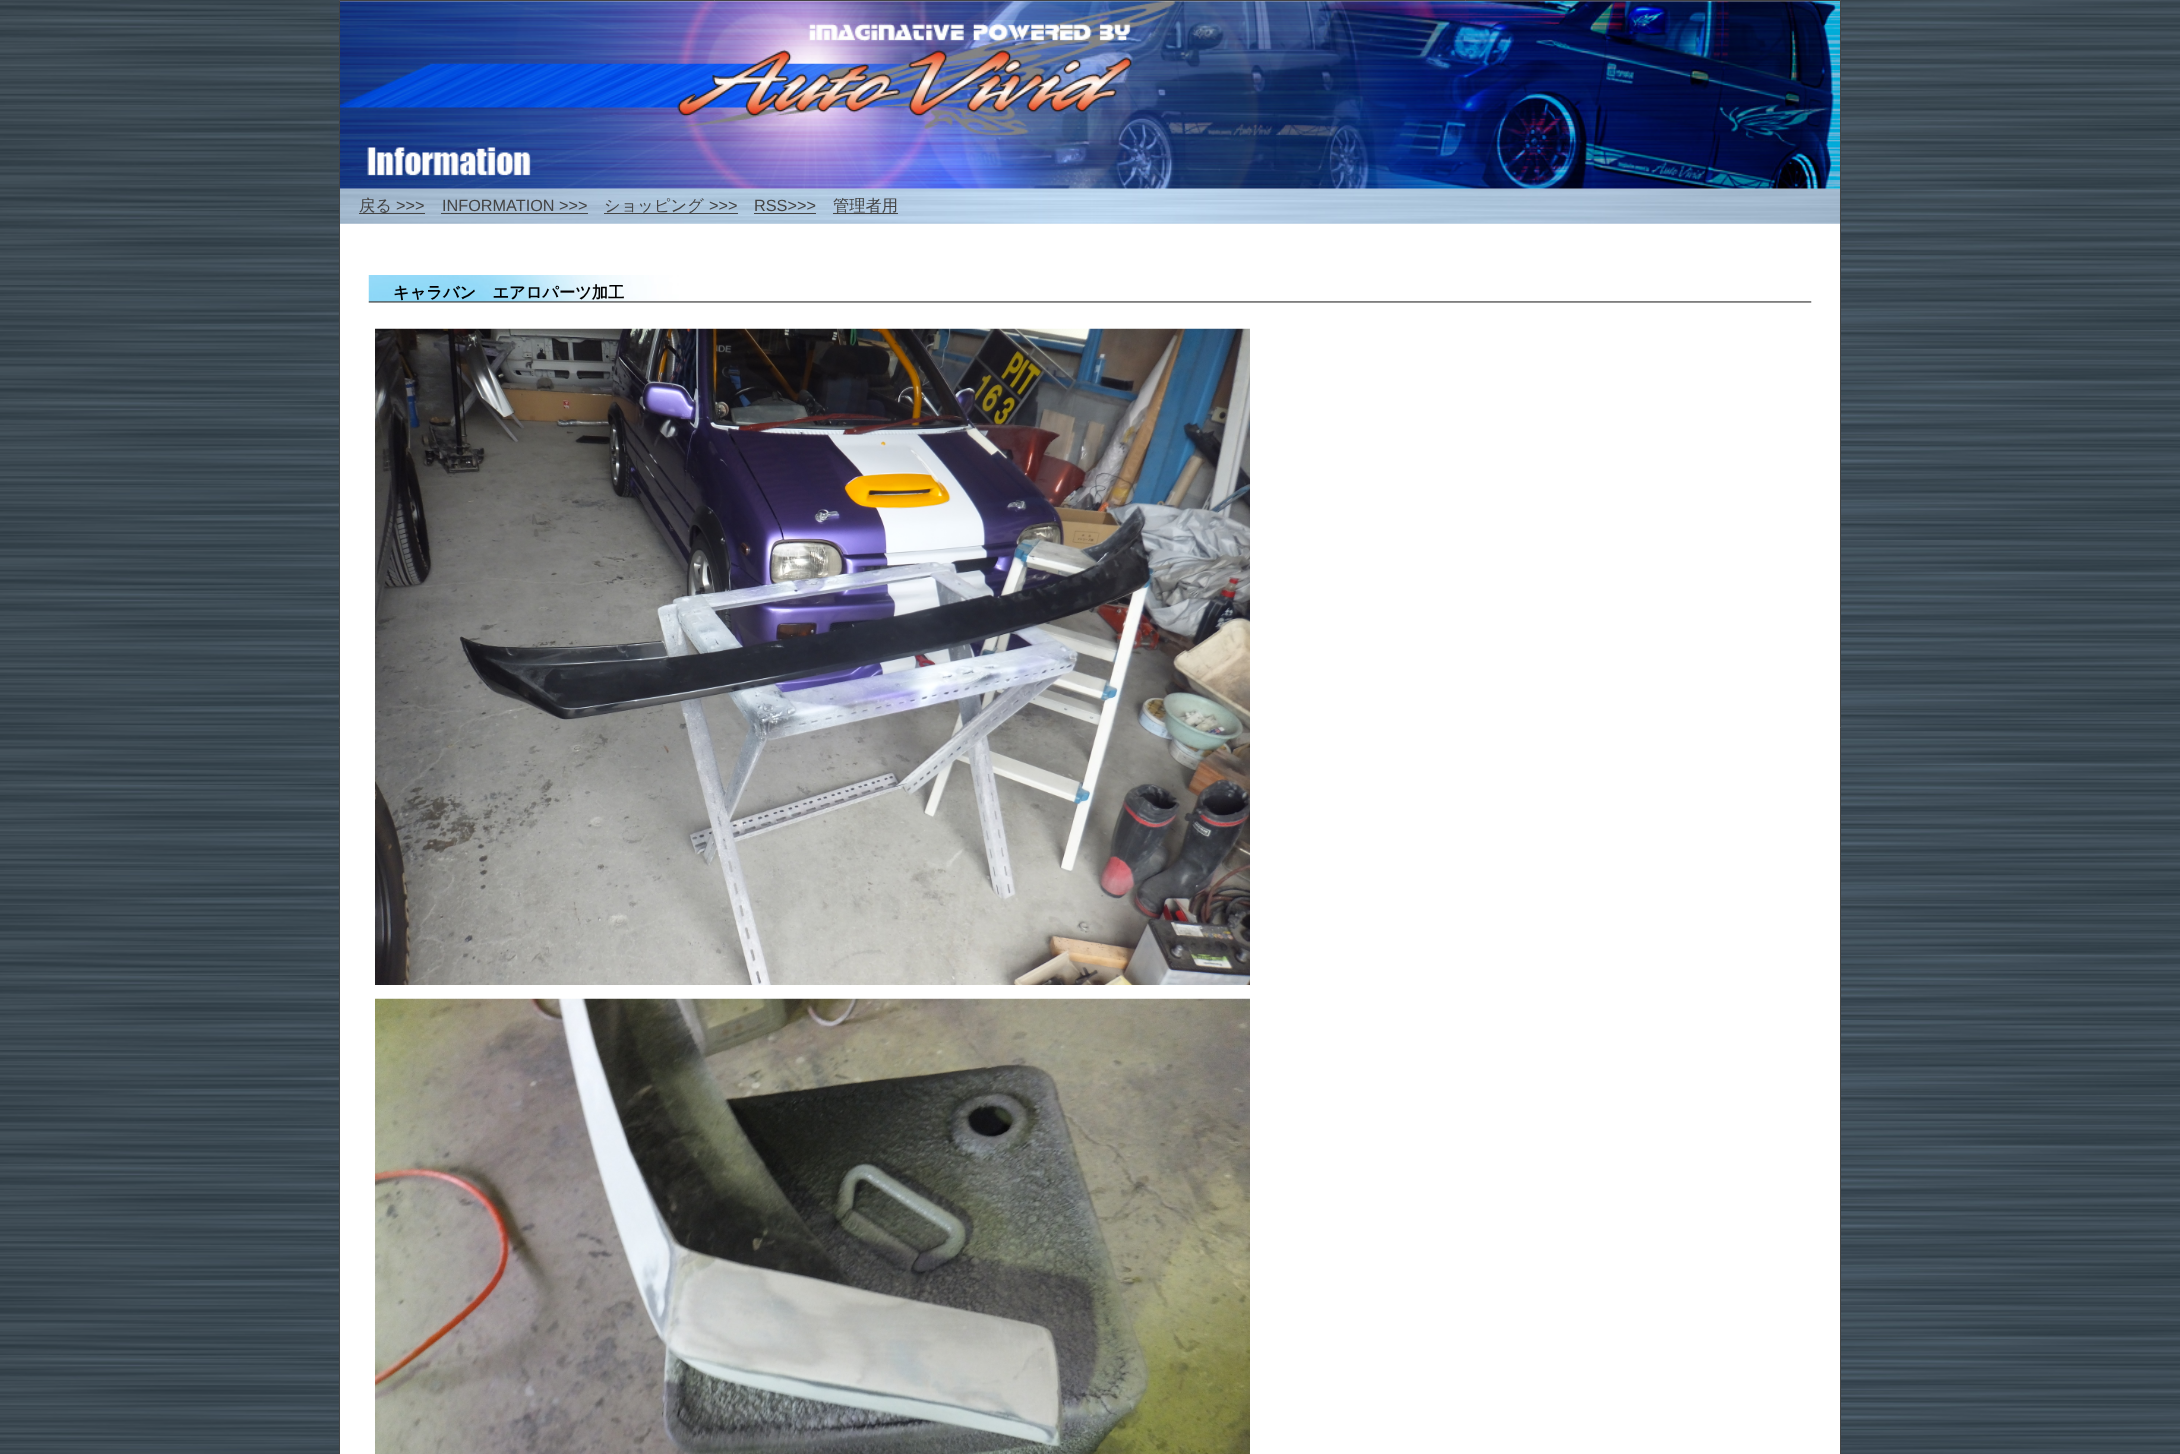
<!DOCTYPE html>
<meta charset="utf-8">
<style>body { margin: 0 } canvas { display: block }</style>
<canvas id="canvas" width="2180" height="1454"></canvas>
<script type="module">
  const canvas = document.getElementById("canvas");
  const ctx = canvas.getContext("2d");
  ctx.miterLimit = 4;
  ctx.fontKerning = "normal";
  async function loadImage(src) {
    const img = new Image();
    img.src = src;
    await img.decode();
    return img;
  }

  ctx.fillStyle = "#ffffff";
  ctx.fillRect(0, 0, 2180, 1454);
  ctx.drawImage(await loadImage("img1.png"), 0, 0, 2180, 1454);
  ctx.beginPath();
  ctx.rect(339.5, 0.5, 1501, 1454);
  ctx.fill();
  ctx.strokeStyle = "#444444";
  ctx.stroke();
  ctx.drawImage(await loadImage("img2.png"), 340, 1, 1500, 188);
  ctx.drawImage(await loadImage("img3.png"), 340, 188, 1500, 36);
  ctx.fillStyle = "#444444";
  ctx.fillRect(359, 213, 66, 1);
  ctx.font = "500 16.25px WenQuanYi Zen Hei";
  ctx.fillText("戻る", 359, 211);
  ctx.font = "16.25px Liberation Sans";
  ctx.fillText(">>>", 396, 211);
  ctx.fillText("INFORMATION >>>", 442, 211);
  ctx.fillRect(441, 213, 147, 1);
  ctx.fillRect(604, 213, 134, 1);
  ctx.font = "500 16.25px WenQuanYi Zen Hei";
  ctx.fillText("ショッピング", 604, 211);
  ctx.font = "16.25px Liberation Sans";
  ctx.fillText(">>>", 709, 211);
  ctx.fillText("RSS>>>", 754, 211);
  ctx.fillRect(754, 213, 62, 1);
  ctx.font = "500 16.25px WenQuanYi Zen Hei";
  ctx.fillText("管理者用", 833, 211);
  ctx.fillRect(833, 213, 65, 1);
  ctx.drawImage(await loadImage("img4.png"), 368, 275, 1444, 28);
  ctx.font = "bold 16.25px WenQuanYi Zen Hei";
  ctx.fillStyle = "#000000";
  ctx.fillText("キャラバン　エアロパーツ加工", 393, 298);
  ctx.drawImage(await loadImage("img5.png"), 375, 328, 875, 657);
  ctx.drawImage(await loadImage("img6.png"), 375, 998, 875, 456);
</script>
